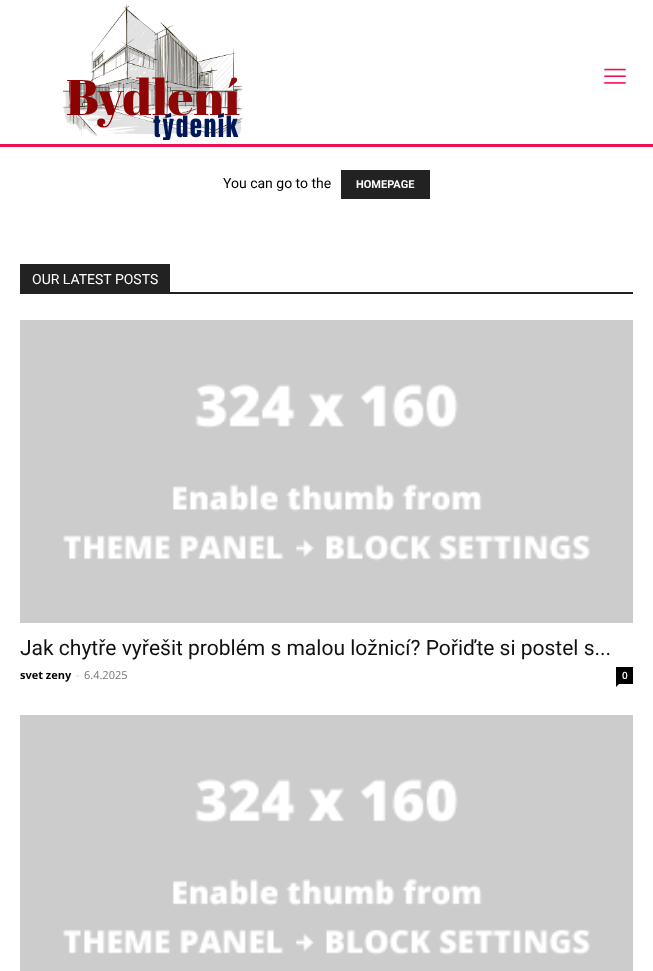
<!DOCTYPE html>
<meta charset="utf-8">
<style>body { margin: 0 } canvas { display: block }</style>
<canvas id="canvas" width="653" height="971"></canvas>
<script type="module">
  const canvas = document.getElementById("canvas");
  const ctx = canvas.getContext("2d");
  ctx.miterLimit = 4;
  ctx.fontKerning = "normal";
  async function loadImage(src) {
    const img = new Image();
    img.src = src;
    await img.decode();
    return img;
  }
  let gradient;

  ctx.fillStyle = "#ffffff";
  ctx.fillRect(0, 0, 653, 971);
  ctx.fillStyle = "#ed0e54";
  ctx.fillRect(0, 144, 653, 3);
  ctx.drawImage(await loadImage("img1.png"), 63, 4, 180, 132);
  ctx.font = "50px Abril Fatface";
  gradient = ctx.createLinearGradient(240, 96, 66, 96);
  gradient.addColorStop(0, "#8e0b0b");
  gradient.addColorStop(1, "#8e0000");
  ctx.fillStyle = gradient;
  ctx.fillText("Bydlení", 66, 115);
  ctx.letterSpacing = "1.75px";
  ctx.font = "25px Anton";
  ctx.fillStyle = "#00165b";
  ctx.fillText("týdeník", 153, 137);
  ctx.drawImage(await loadImage("img2.png"), 604, 68, 22, 16);
  ctx.letterSpacing = "0px";
  ctx.font = "14px Roboto";
  ctx.fillStyle = "#000000";
  ctx.fillText("You can go to the", 223, 188);
  ctx.fillStyle = "#222222";
  ctx.fillRect(341, 170, 89, 29);
  ctx.font = "bold 11px Roboto";
  ctx.fillStyle = "#ffffff";
  ctx.fillText("HOMEPAGE", 356, 188);
  ctx.fillStyle = "#222222";
  ctx.fillRect(20, 292, 613, 2);
  ctx.fillRect(20, 264, 150, 28);
  ctx.font = "14px Roboto";
  ctx.fillStyle = "#ffffff";
  ctx.fillText("OUR LATEST POSTS", 32, 284);
  ctx.drawImage(await loadImage("img3.png"), 20, 320, 613, 303);
  ctx.font = "21px Roboto";
  ctx.fillStyle = "#111111";
  ctx.fillText("Jak chytře vyřešit problém s malou ložnicí? Pořiďte si postel s...", 20, 655);
  ctx.font = "bold 11px Open Sans";
  ctx.fillStyle = "#000000";
  ctx.fillText("svet zeny", 20, 679);
  ctx.font = "11px Open Sans";
  ctx.fillStyle = "#cccccc";
  ctx.fillText("-", 76, 679);
  ctx.fillStyle = "#767676";
  ctx.fillText("6.4.2025", 84, 679);
  ctx.fillStyle = "#000000";
  ctx.fillRect(616, 667, 17, 17);
  ctx.font = "600 10px Open Sans";
  ctx.fillStyle = "#ffffff";
  ctx.fillText("0", 622, 679);
  ctx.fillStyle = "#000000";
  ctx.beginPath();
  ctx.moveTo(616, 684);
  ctx.lineTo(619, 684);
  ctx.lineTo(616, 687);
  ctx.closePath();
  ctx.fill();
  ctx.drawImage(await loadImage("img4.png"), 20, 715, 613, 256);
</script>
